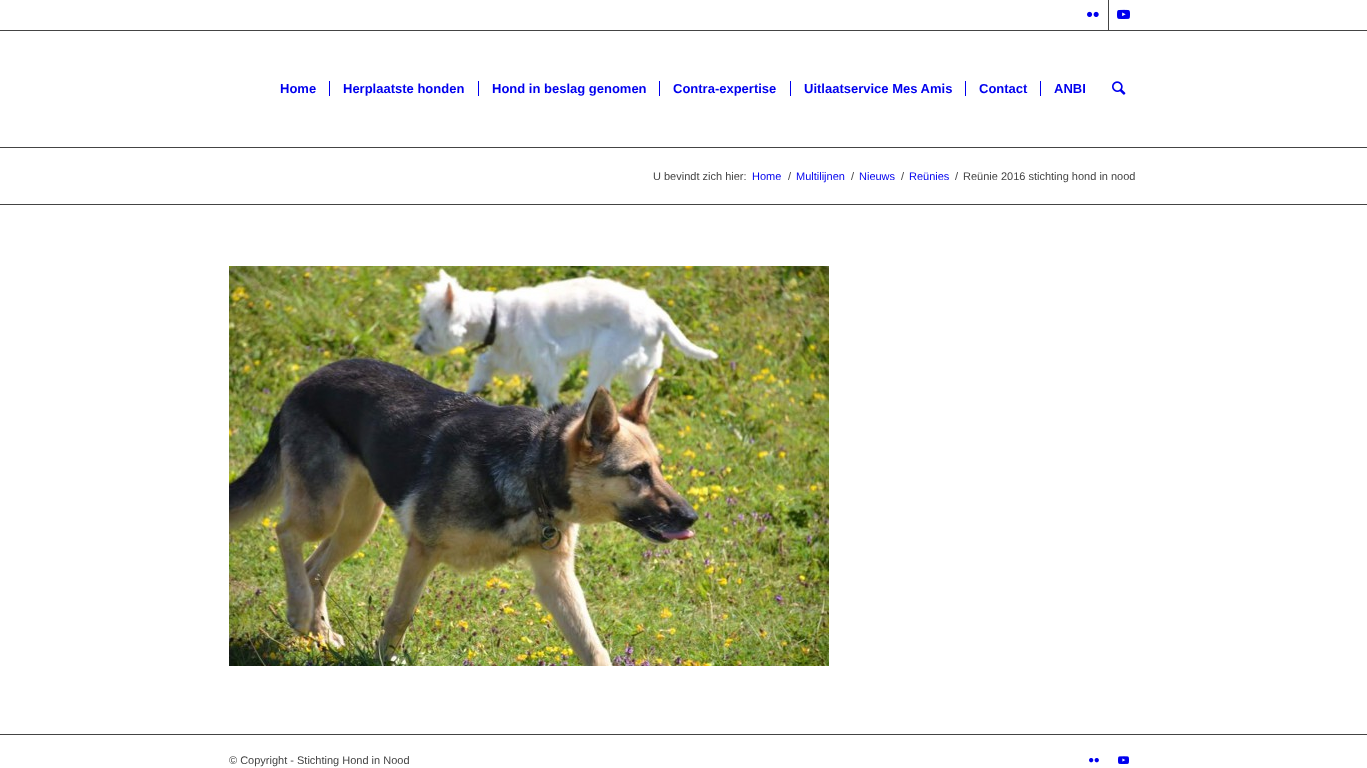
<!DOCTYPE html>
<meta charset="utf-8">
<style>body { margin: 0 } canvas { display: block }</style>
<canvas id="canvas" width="1367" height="768"></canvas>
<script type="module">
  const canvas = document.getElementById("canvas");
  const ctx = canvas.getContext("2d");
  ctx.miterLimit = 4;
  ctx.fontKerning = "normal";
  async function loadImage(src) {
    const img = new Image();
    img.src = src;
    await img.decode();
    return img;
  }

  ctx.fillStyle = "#ffffff";
  ctx.fillRect(0, 0, 1367, 768);
  ctx.fillStyle = "#444444";
  ctx.fillRect(1108, 0, 1, 30);
  ctx.drawImage(await loadImage("img1.png"), 1087, 11, 12, 6);
  ctx.drawImage(await loadImage("img2.png"), 1117, 9, 13, 10);
  ctx.fillRect(0, 30, 1367, 1);
  ctx.font = "bold 13px Liberation Sans";
  ctx.fillStyle = "#0000ee";
  ctx.fillText("Home", 280, 93);
  ctx.fillText("Herplaatste honden", 343, 93);
  ctx.fillRect(329, 81, 1, 15);
  ctx.fillText("Hond in beslag genomen", 492, 93);
  ctx.fillRect(478, 81, 1, 15);
  ctx.fillText("Contra-expertise", 673, 93);
  ctx.fillRect(659, 81, 1, 15);
  ctx.fillText("Uitlaatservice Mes Amis", 804, 93);
  ctx.fillRect(790, 81, 1, 15);
  ctx.fillText("Contact", 979, 93);
  ctx.fillRect(965, 81, 1, 15);
  ctx.fillText("ANBI", 1054, 93);
  ctx.fillRect(1040, 81, 1, 15);
  ctx.drawImage(await loadImage("img3.png"), 1112, 81, 14, 14);
  ctx.fillStyle = "#444444";
  ctx.fillRect(0, 147, 1367, 1);
  ctx.font = "11px Liberation Sans";
  ctx.fillText("U bevindt zich hier:", 653, 180);
  ctx.fillStyle = "#0000ee";
  ctx.fillText("Home", 752, 180);
  ctx.fillStyle = "#444444";
  ctx.fillText("/", 788, 180);
  ctx.fillStyle = "#0000ee";
  ctx.fillText("Multilijnen", 796, 180);
  ctx.fillStyle = "#444444";
  ctx.fillText("/", 851, 180);
  ctx.fillStyle = "#0000ee";
  ctx.fillText("Nieuws", 859, 180);
  ctx.fillStyle = "#444444";
  ctx.fillText("/", 901, 180);
  ctx.fillStyle = "#0000ee";
  ctx.fillText("Reünies", 909, 180);
  ctx.fillStyle = "#444444";
  ctx.fillText("/", 955, 180);
  ctx.fillText("Reünie 2016 stichting hond in nood", 963, 180);
  ctx.fillRect(0, 204, 1367, 1);
  ctx.drawImage(await loadImage("img4.png"), 229, 266, 600, 400);
  ctx.fillRect(0, 734, 1367, 1);
  ctx.fillText("© Copyright - Stichting Hond in Nood", 229, 764);
  ctx.drawImage(await loadImage("img5.png"), 1089, 758, 10, 5);
  ctx.drawImage(await loadImage("img6.png"), 1118, 756, 11, 8);
</script>
